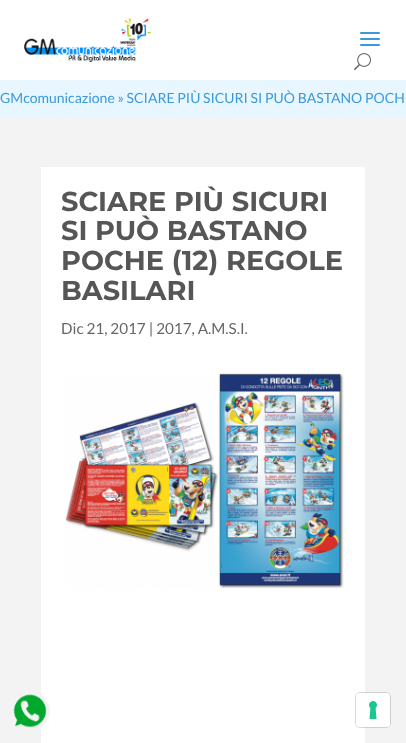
<!DOCTYPE html>
<meta charset="utf-8">
<style>body { margin: 0 } canvas { display: block }</style>
<canvas id="canvas" width="406" height="743"></canvas>
<script type="module">
  const canvas = document.getElementById("canvas");
  const ctx = canvas.getContext("2d");
  ctx.miterLimit = 4;
  ctx.fontKerning = "normal";
  async function loadImage(src) {
    const img = new Image();
    img.src = src;
    await img.decode();
    return img;
  }

  ctx.fillStyle = "#f3f3f3";
  ctx.fillRect(0, 0, 406, 743);
  ctx.fillStyle = "#ffffff";
  ctx.fillRect(0, 0, 406, 80);
  ctx.drawImage(await loadImage("img1.png"), 24, 18, 127, 44);
  ctx.drawImage(await loadImage("img2.png"), 360, 32, 20, 14);
  ctx.drawImage(await loadImage("img3.png"), 354, 53, 17, 18);
  ctx.fillStyle = "#e8f6ff";
  ctx.fillRect(0, 80, 406, 37);
  ctx.font = "14px Lato";
  ctx.fillStyle = "#3a9ad9";
  ctx.fillText("GMcomunicazione » SCIARE PIÙ SICURI SI PUÒ BASTANO POCH", 0, 103);
  ctx.fillStyle = "#ffffff";
  ctx.fillRect(41, 167, 324, 576);
  ctx.font = "bold 27.25px Montserrat";
  ctx.fillStyle = "#565656";
  ctx.fillText("SCIARE PIÙ SICURI", 61, 211);
  ctx.fillText("SI PUÒ BASTANO", 61, 240);
  ctx.fillText("POCHE (12) REGOLE", 61, 270);
  ctx.fillText("BASILARI", 61, 300);
  ctx.font = "15.25px Lato";
  ctx.fillStyle = "#666666";
  ctx.fillText("Dic 21, 2017 | 2017, A.M.S.I.", 61, 334);
  ctx.drawImage(await loadImage("img4.png"), 65, 373, 279, 216);
  ctx.drawImage(await loadImage("img5.png"), 13, 694, 37, 34);
  ctx.beginPath();
  ctx.roundRect(355.5, 692.5, 35, 35, 4.5);
  ctx.strokeStyle = "rgba(0, 0, 0, 0.15)";
  ctx.stroke();
  ctx.fillStyle = "#ffffff";
  ctx.beginPath();
  ctx.roundRect(356, 693, 34, 34, 4);
  ctx.fill();
  ctx.drawImage(await loadImage("img6.png"), 369, 701, 8, 18);
</script>
